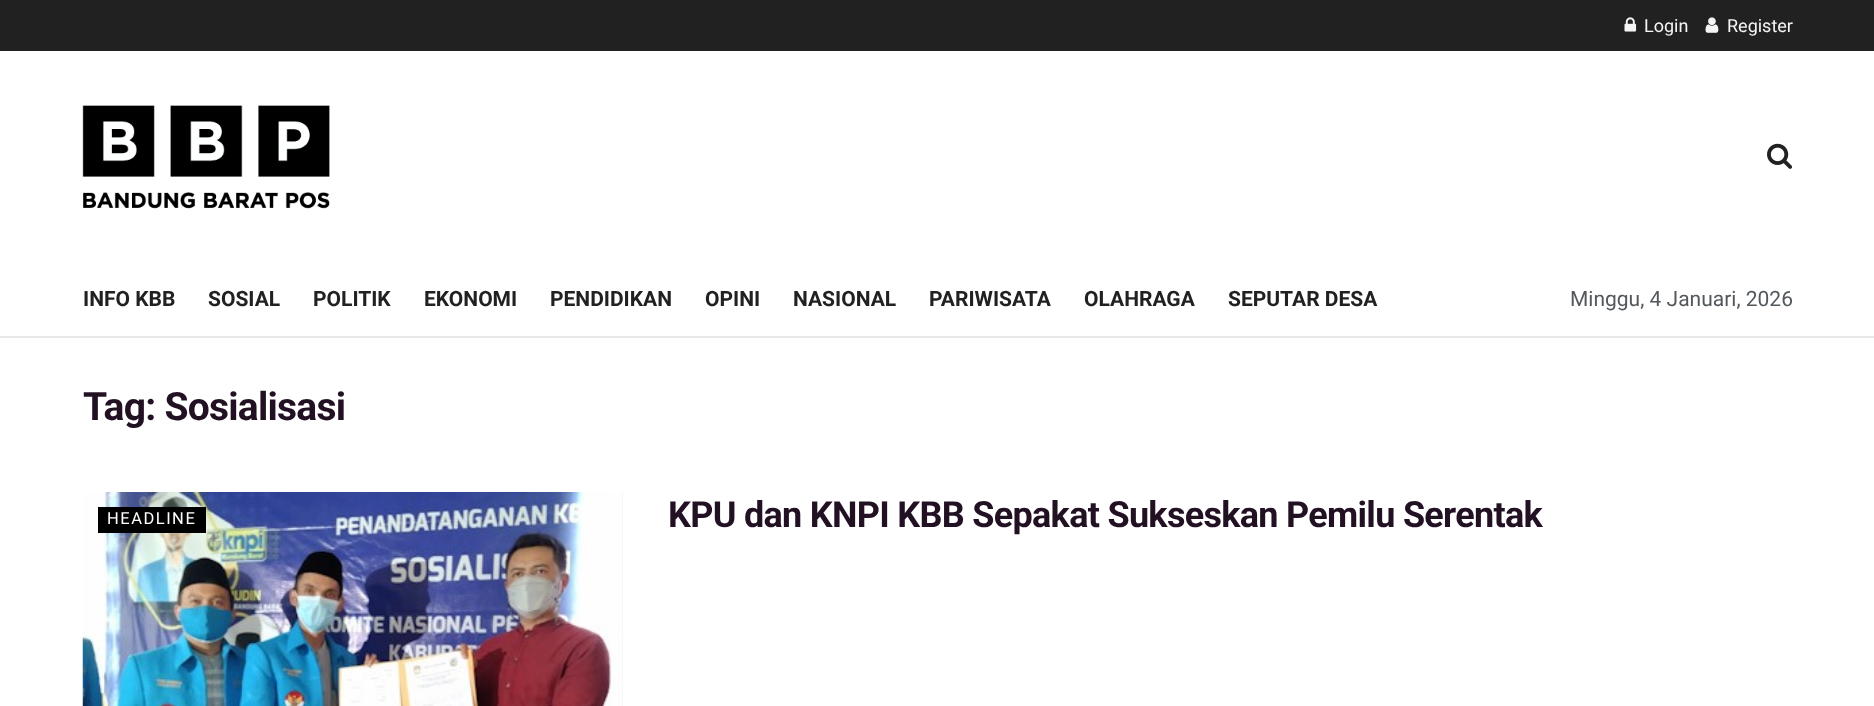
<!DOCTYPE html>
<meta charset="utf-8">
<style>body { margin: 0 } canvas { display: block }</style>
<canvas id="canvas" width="1874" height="706"></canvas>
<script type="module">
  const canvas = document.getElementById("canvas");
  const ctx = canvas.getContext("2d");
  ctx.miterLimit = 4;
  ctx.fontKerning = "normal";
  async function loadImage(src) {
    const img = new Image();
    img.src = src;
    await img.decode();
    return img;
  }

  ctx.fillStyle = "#ffffff";
  ctx.fillRect(0, 0, 1874, 706);
  ctx.fillStyle = "#212121";
  ctx.fillRect(0, 0, 1874, 51);
  ctx.drawImage(await loadImage("img1.png"), 1624, 17, 13, 15);
  ctx.font = "18px Roboto";
  ctx.fillStyle = "#f5f5f5";
  ctx.fillText("Login", 1644, 32);
  ctx.drawImage(await loadImage("img2.png"), 1705, 17, 14, 16);
  ctx.fillText("Register", 1727, 32);
  ctx.drawImage(await loadImage("img3.png"), 82, 105, 248, 104);
  ctx.drawImage(await loadImage("img4.png"), 1767, 143, 25, 26);
  ctx.fillStyle = "#e8e8e8";
  ctx.fillRect(0, 336, 1874, 2);
  ctx.font = "bold 21px Roboto";
  ctx.fillStyle = "#212121";
  ctx.fillText("INFO KBB", 83, 306);
  ctx.fillText("SOSIAL", 208, 306);
  ctx.fillText("POLITIK", 313, 306);
  ctx.fillText("EKONOMI", 424, 306);
  ctx.fillText("PENDIDIKAN", 550, 306);
  ctx.fillText("OPINI", 705, 306);
  ctx.fillText("NASIONAL", 793, 306);
  ctx.fillText("PARIWISATA", 929, 306);
  ctx.fillText("OLAHRAGA", 1084, 306);
  ctx.fillText("SEPUTAR DESA", 1228, 306);
  ctx.font = "21px Roboto";
  ctx.fillStyle = "#53585c";
  ctx.fillText("Minggu, 4 Januari, 2026", 1570, 306);
  ctx.letterSpacing = "-0.75px";
  ctx.font = "bold 39px Roboto";
  ctx.fillStyle = "#221122";
  ctx.fillText("Tag: Sosialisasi", 83, 420);
  ctx.fillStyle = "#f7f7f7";
  ctx.fillRect(622, 492, 1, 214);
  ctx.drawImage(await loadImage("img5.png"), 82, 492, 540, 214);
  ctx.fillStyle = "#000000";
  ctx.fillRect(98, 507, 108, 26);
  ctx.letterSpacing = "1.5px";
  ctx.font = "16.5px Roboto";
  ctx.fillStyle = "#ffffff";
  ctx.fillText("HEADLINE", 107, 524);
  ctx.letterSpacing = "-0.7px";
  ctx.font = "bold 36px Roboto";
  ctx.fillStyle = "#221122";
  ctx.fillText("KPU dan KNPI KBB Sepakat Sukseskan Pemilu Serentak", 668, 527);
</script>
